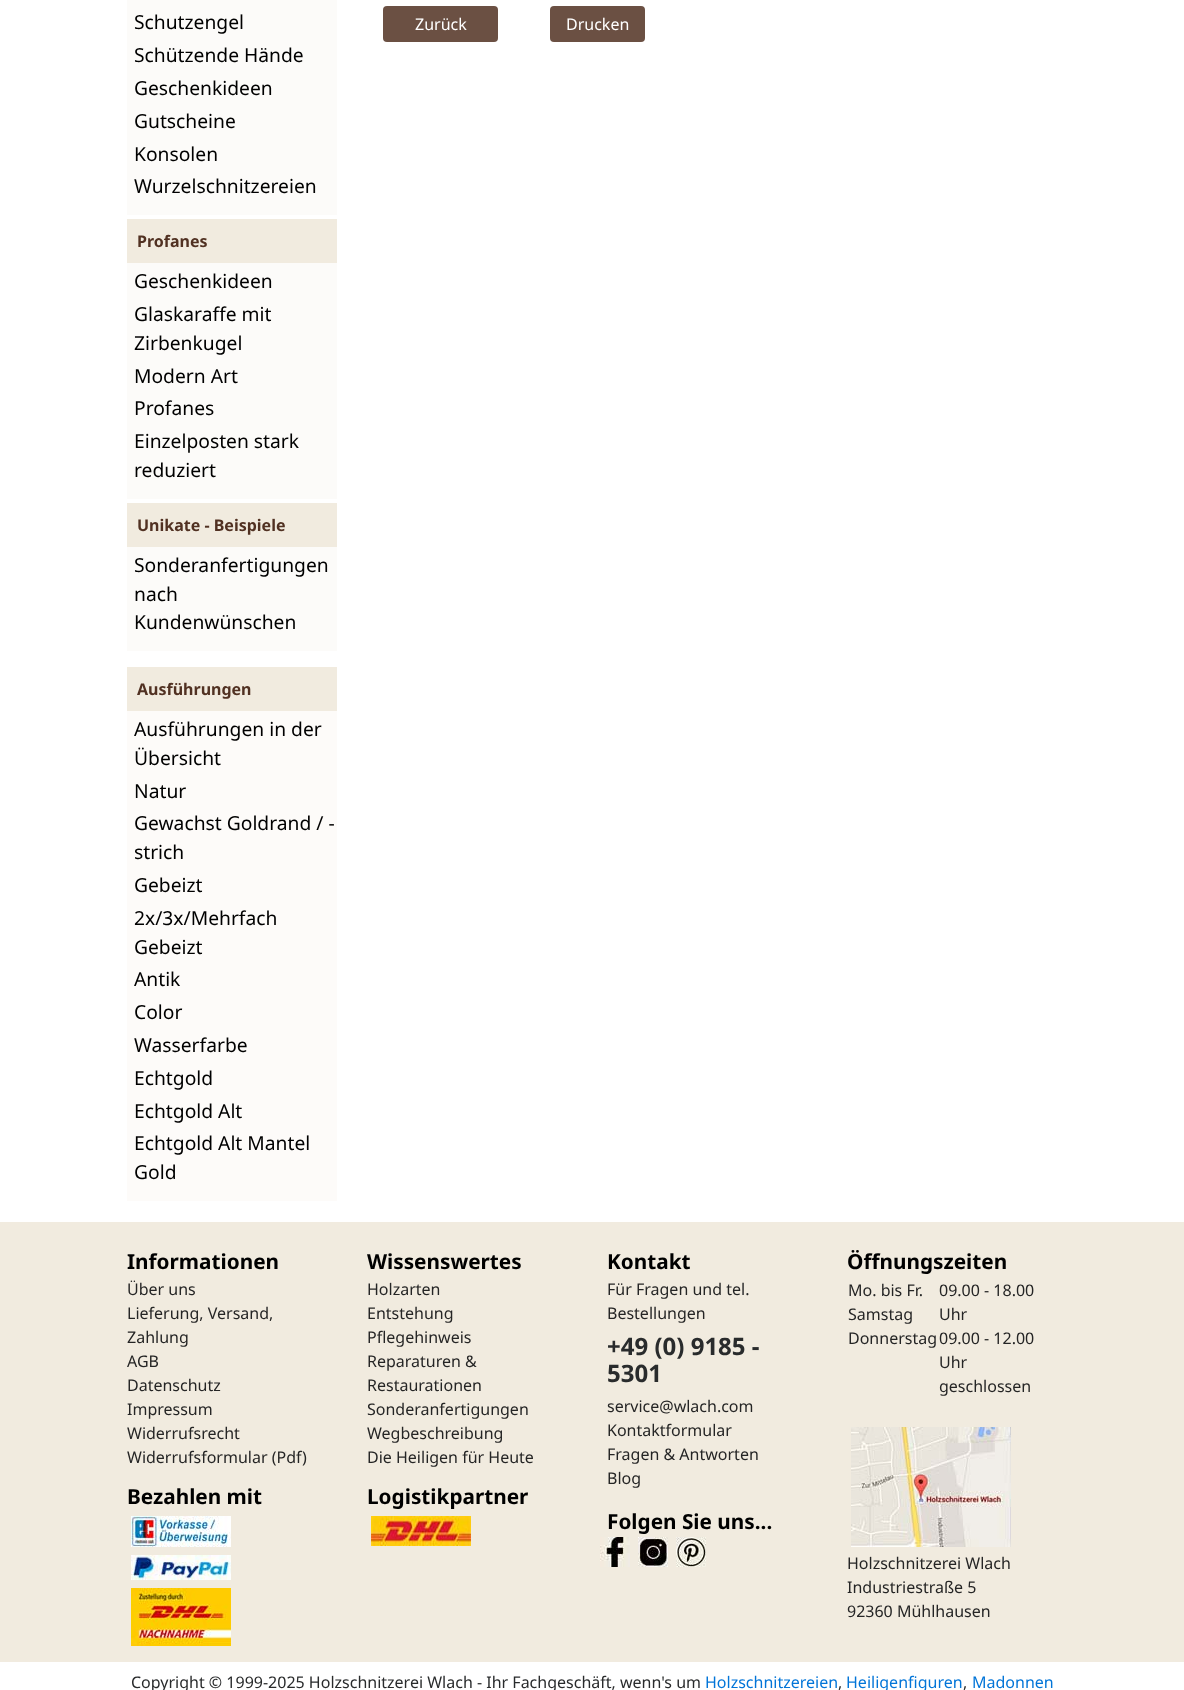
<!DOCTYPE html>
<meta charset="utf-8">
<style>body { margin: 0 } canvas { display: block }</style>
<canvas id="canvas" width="1184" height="1690"></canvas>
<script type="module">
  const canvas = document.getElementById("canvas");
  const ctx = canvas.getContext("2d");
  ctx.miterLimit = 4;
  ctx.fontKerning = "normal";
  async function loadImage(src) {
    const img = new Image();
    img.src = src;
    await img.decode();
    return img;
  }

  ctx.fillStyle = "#ffffff";
  ctx.fillRect(0, 0, 1184, 1690);
  ctx.fillStyle = "#fcfbf9";
  ctx.fillRect(127, 0, 210, 215);
  ctx.font = "19.25px Noto Sans";
  ctx.fillStyle = "#000000";
  ctx.fillText("Schutzengel", 134, 29);
  ctx.fillText("Schützende Hände", 134, 62);
  ctx.fillText("Geschenkideen", 134, 95);
  ctx.fillText("Gutscheine", 134, 128);
  ctx.fillText("Konsolen", 134, 161);
  ctx.fillText("Wurzelschnitzereien", 134, 193);
  ctx.fillStyle = "#fcfbf9";
  ctx.fillRect(127, 263, 210, 236);
  ctx.fillStyle = "#f1ebdf";
  ctx.fillRect(127, 219, 210, 44);
  ctx.font = "bold 16px Noto Sans";
  ctx.fillStyle = "#513122";
  ctx.fillText("Profanes", 137, 247);
  ctx.font = "19.25px Noto Sans";
  ctx.fillStyle = "#000000";
  ctx.fillText("Geschenkideen", 134, 288);
  ctx.fillText("Glaskaraffe mit", 134, 321);
  ctx.fillText("Zirbenkugel", 134, 350);
  ctx.fillText("Modern Art", 134, 383);
  ctx.fillText("Profanes", 134, 415);
  ctx.fillText("Einzelposten stark", 134, 448);
  ctx.fillText("reduziert", 134, 477);
  ctx.fillStyle = "#fcfbf9";
  ctx.fillRect(127, 547, 210, 104);
  ctx.fillStyle = "#f1ebdf";
  ctx.fillRect(127, 503, 210, 44);
  ctx.font = "bold 16px Noto Sans";
  ctx.fillStyle = "#513122";
  ctx.fillText("Unikate - Beispiele", 137, 531);
  ctx.font = "19.25px Noto Sans";
  ctx.fillStyle = "#000000";
  ctx.fillText("Sonderanfertigungen", 134, 572);
  ctx.fillText("nach", 134, 601);
  ctx.fillText("Kundenwünschen", 134, 629);
  ctx.fillStyle = "#fdfbf9";
  ctx.fillRect(127, 711, 210, 490);
  ctx.fillStyle = "#f1ebdf";
  ctx.fillRect(127, 667, 210, 44);
  ctx.font = "bold 16px Noto Sans";
  ctx.fillStyle = "#513122";
  ctx.fillText("Ausführungen", 137, 695);
  ctx.font = "19.25px Noto Sans";
  ctx.fillStyle = "#000000";
  ctx.fillText("Ausführungen in der", 134, 736);
  ctx.fillText("Übersicht", 134, 765);
  ctx.fillText("Natur", 134, 798);
  ctx.fillText("Gewachst Goldrand / -", 134, 830);
  ctx.fillText("strich", 134, 859);
  ctx.fillText("Gebeizt", 134, 892);
  ctx.fillText("2x/3x/Mehrfach", 134, 925);
  ctx.fillText("Gebeizt", 134, 954);
  ctx.fillText("Antik", 134, 986);
  ctx.fillText("Color", 134, 1019);
  ctx.fillText("Wasserfarbe", 134, 1052);
  ctx.fillText("Echtgold", 134, 1085);
  ctx.fillText("Echtgold Alt", 134, 1118);
  ctx.fillText("Echtgold Alt Mantel", 134, 1150);
  ctx.fillText("Gold", 134, 1179);
  ctx.fillStyle = "#6b5043";
  ctx.beginPath();
  ctx.roundRect(383, 6, 115, 36, 4);
  ctx.fill();
  ctx.font = "16px Noto Sans";
  ctx.fillStyle = "#ffffff";
  ctx.fillText("Zurück", 415, 30);
  ctx.fillStyle = "#6b5043";
  ctx.beginPath();
  ctx.roundRect(550, 6, 95, 36, 4);
  ctx.fill();
  ctx.fillStyle = "#ffffff";
  ctx.fillText("Drucken", 566, 30);
  ctx.fillStyle = "#f1ebdf";
  ctx.fillRect(0, 1222, 1184, 440);
  ctx.font = "bold 20.75px Noto Sans";
  ctx.fillStyle = "#000000";
  ctx.fillText("Informationen", 127, 1269);
  ctx.font = "16px Noto Sans";
  ctx.fillStyle = "#252525";
  ctx.fillText("Über uns", 127, 1295);
  ctx.fillText("Lieferung, Versand,", 127, 1319);
  ctx.fillText("Zahlung", 127, 1343);
  ctx.fillText("AGB", 127, 1367);
  ctx.fillText("Datenschutz", 127, 1391);
  ctx.fillText("Impressum", 127, 1415);
  ctx.fillText("Widerrufsrecht", 127, 1439);
  ctx.fillText("Widerrufsformular (Pdf)", 127, 1463);
  ctx.font = "bold 20.75px Noto Sans";
  ctx.fillStyle = "#000000";
  ctx.fillText("Bezahlen mit", 127, 1504);
  ctx.drawImage(await loadImage("img1.png"), 131, 1516, 100, 31);
  ctx.drawImage(await loadImage("img2.png"), 131, 1555, 100, 25);
  ctx.drawImage(await loadImage("img3.png"), 131, 1588, 100, 58);
  ctx.fillText("Wissenswertes", 367, 1269);
  ctx.font = "16px Noto Sans";
  ctx.fillStyle = "#252525";
  ctx.fillText("Holzarten", 367, 1295);
  ctx.fillText("Entstehung", 367, 1319);
  ctx.fillText("Pflegehinweis", 367, 1343);
  ctx.fillText("Reparaturen &", 367, 1367);
  ctx.fillText("Restaurationen", 367, 1391);
  ctx.fillText("Sonderanfertigungen", 367, 1415);
  ctx.fillText("Wegbeschreibung", 367, 1439);
  ctx.fillText("Die Heiligen für Heute", 367, 1463);
  ctx.font = "bold 20.75px Noto Sans";
  ctx.fillStyle = "#000000";
  ctx.fillText("Logistikpartner", 367, 1504);
  ctx.drawImage(await loadImage("img4.png"), 371, 1516, 100, 30);
  ctx.fillText("Kontakt", 607, 1269);
  ctx.font = "16px Noto Sans";
  ctx.fillStyle = "#252525";
  ctx.fillText("Für Fragen und tel.", 607, 1295);
  ctx.fillText("Bestellungen", 607, 1319);
  ctx.font = "bold 24px Noto Sans";
  ctx.fillStyle = "#292b2c";
  ctx.fillText("+49 (0) 9185 -", 607, 1355);
  ctx.fillText("5301", 607, 1382);
  ctx.font = "16px Noto Sans";
  ctx.fillStyle = "#252525";
  ctx.fillText("service@wlach.com", 607, 1412);
  ctx.fillText("Kontaktformular", 607, 1436);
  ctx.fillText("Fragen & Antworten", 607, 1460);
  ctx.fillText("Blog", 607, 1484);
  ctx.font = "bold 20.75px Noto Sans";
  ctx.fillStyle = "#000000";
  ctx.fillText("Folgen Sie uns...", 607, 1529);
  ctx.drawImage(await loadImage("img5.png"), 600, 1537, 30, 30);
  ctx.drawImage(await loadImage("img6.png"), 638, 1537, 30, 30);
  ctx.drawImage(await loadImage("img7.png"), 676, 1537, 30, 30);
  ctx.fillText("Öffnungszeiten", 847, 1269);
  ctx.font = "16px Noto Sans";
  ctx.fillStyle = "#252525";
  ctx.fillText("Mo. bis Fr.", 848, 1296);
  ctx.fillText("Samstag", 848, 1320);
  ctx.fillText("Donnerstag", 848, 1344);
  ctx.fillText("09.00 - 18.00", 939, 1296);
  ctx.fillText("Uhr", 939, 1320);
  ctx.fillText("09.00 - 12.00", 939, 1344);
  ctx.fillText("Uhr", 939, 1368);
  ctx.fillText("geschlossen", 939, 1392);
  ctx.drawImage(await loadImage("img8.png"), 851, 1427, 160, 120);
  ctx.fillText("Holzschnitzerei Wlach", 847, 1569);
  ctx.fillText("Industriestraße 5", 847, 1593);
  ctx.fillText("92360 Mühlhausen", 847, 1617);
  ctx.fillStyle = "#292b2c";
  ctx.fillText("Copyright © 1999-2025 Holzschnitzerei Wlach - Ihr Fachgeschäft, wenn's um", 131, 1688);
  ctx.fillStyle = "#0275d8";
  ctx.fillText("Holzschnitzereien", 705, 1688);
  ctx.fillStyle = "#292b2c";
  ctx.fillText(",", 838, 1688);
  ctx.fillStyle = "#0275d8";
  ctx.fillText("Heiligenfiguren", 846, 1688);
  ctx.fillStyle = "#292b2c";
  ctx.fillText(",", 963, 1688);
  ctx.fillStyle = "#0275d8";
  ctx.fillText("Madonnen", 972, 1688);
</script>
